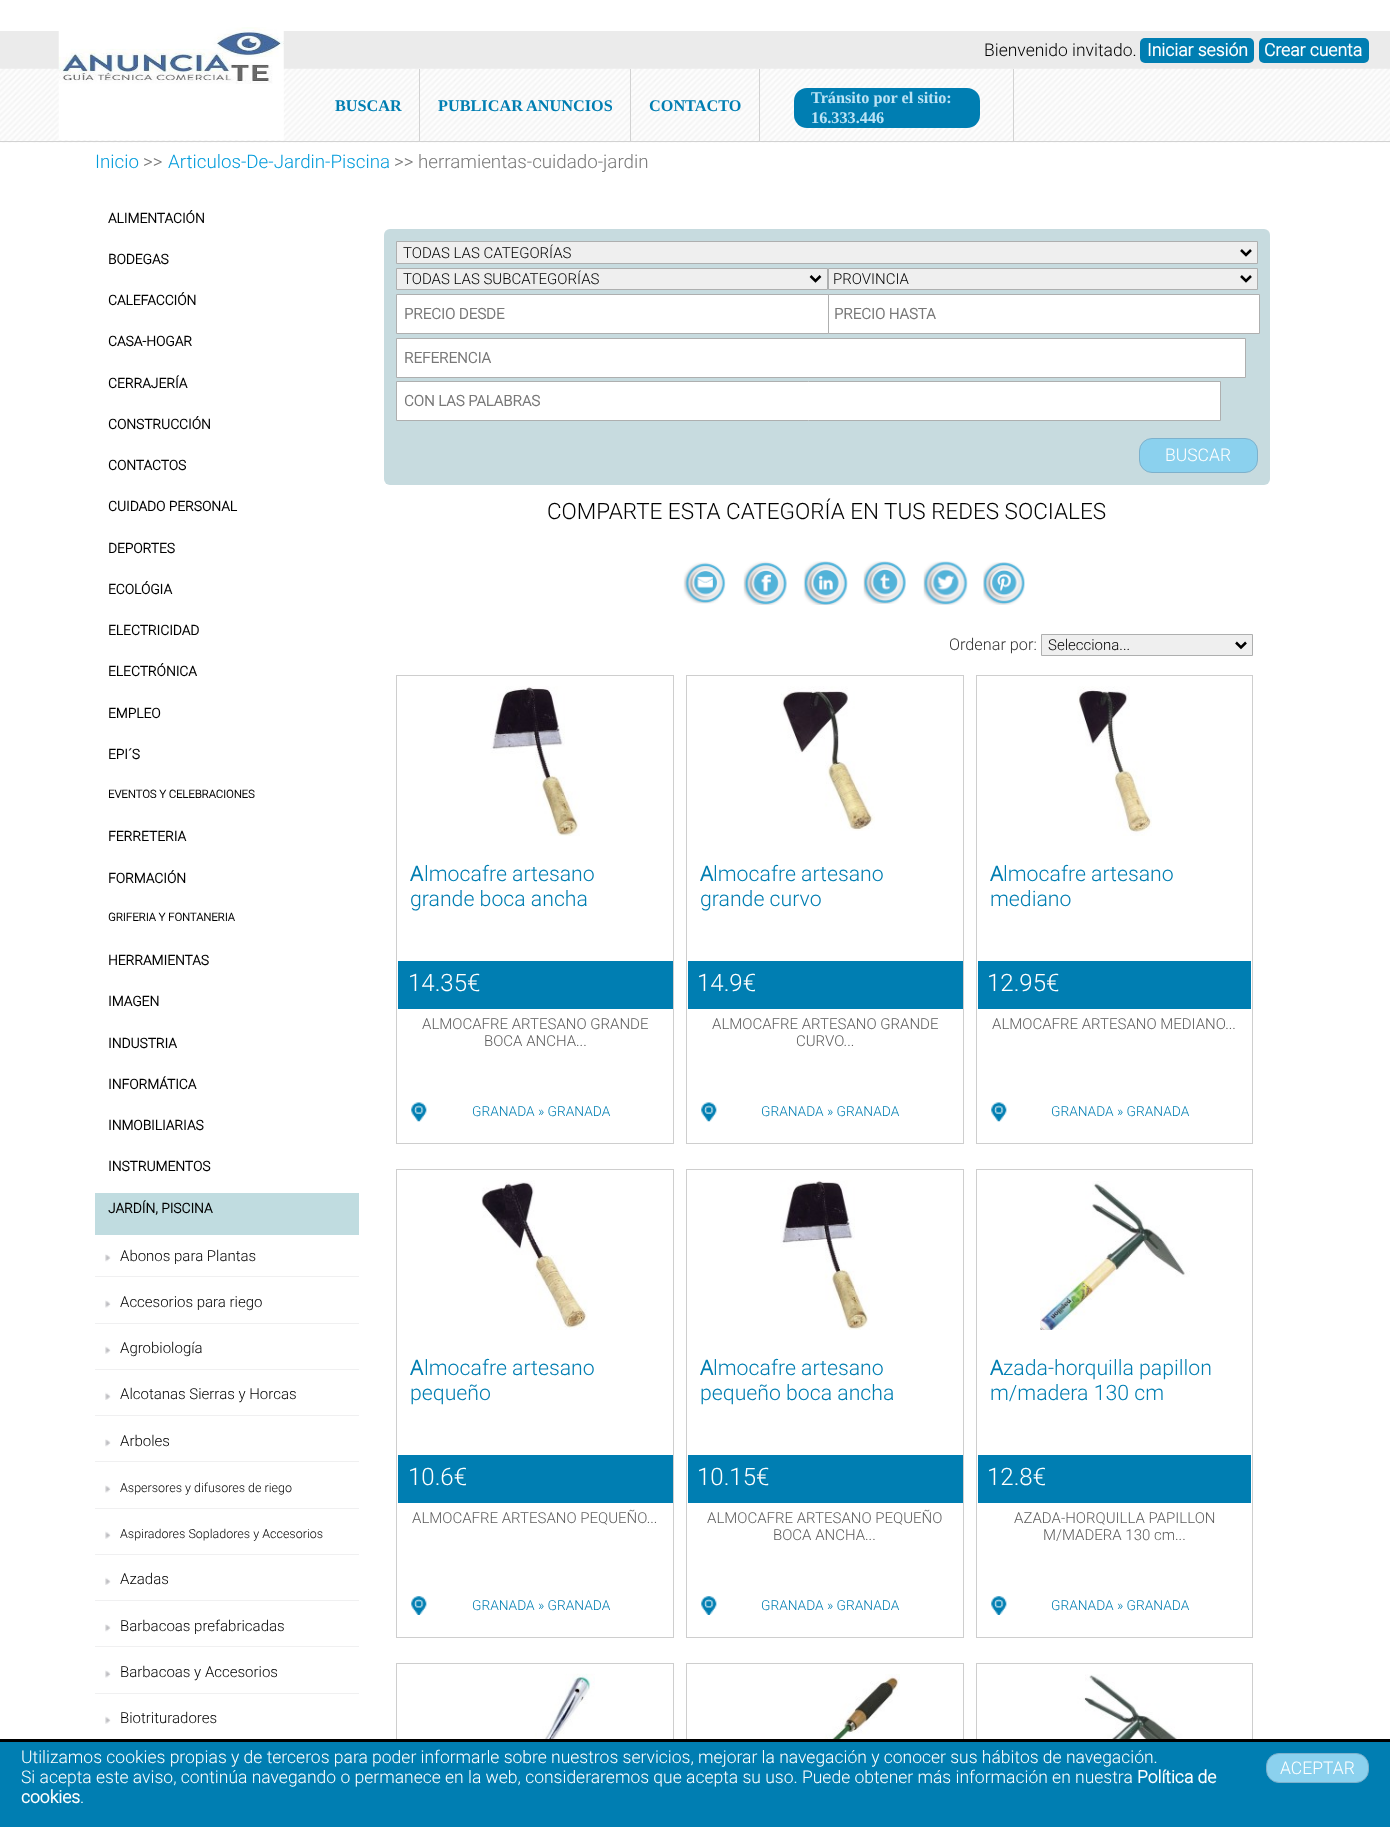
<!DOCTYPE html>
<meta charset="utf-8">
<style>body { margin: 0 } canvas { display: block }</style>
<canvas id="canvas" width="1390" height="1827"></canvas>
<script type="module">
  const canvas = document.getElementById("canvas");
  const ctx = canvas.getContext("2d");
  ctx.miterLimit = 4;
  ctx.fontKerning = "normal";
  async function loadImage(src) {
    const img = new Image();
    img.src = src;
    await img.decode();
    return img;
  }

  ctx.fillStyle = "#ffffff";
  ctx.fillRect(0, 0, 1390, 1827);
  ctx.fillStyle = "#ebebeb";
  ctx.fillRect(0, 31, 1390, 38);
  ctx.font = "300 17.5px Roboto";
  ctx.fillStyle = "#000000";
  ctx.fillText("Bienvenido invitado.", 984, 56);
  ctx.fillStyle = "#007eb2";
  ctx.beginPath();
  ctx.roundRect(1140, 38, 114, 25, 5);
  ctx.fill();
  ctx.font = "bold 17.5px Roboto";
  ctx.fillStyle = "#ffffff";
  ctx.fillText("Iniciar sesión", 1147, 56);
  ctx.fillStyle = "#007eb2";
  ctx.beginPath();
  ctx.roundRect(1259, 38, 110, 25, 5);
  ctx.fill();
  ctx.fillStyle = "#ffffff";
  ctx.fillText("Crear cuenta", 1264, 56);
  ctx.drawImage(await loadImage("img1.png"), 0, 68, 1390, 75);
  ctx.fillStyle = "#d2d2d2";
  ctx.fillRect(0, 141, 1390, 1);
  ctx.drawImage(await loadImage("img2.png"), 58, 27, 226, 113);
  ctx.fillRect(419, 69, 1, 72);
  ctx.font = "bold 16.25px Liberation Serif";
  ctx.fillStyle = "#007eb2";
  ctx.fillText("BUSCAR", 335, 111);
  ctx.fillStyle = "#d2d2d2";
  ctx.fillRect(630, 69, 1, 72);
  ctx.fillStyle = "#007eb2";
  ctx.fillText("PUBLICAR ANUNCIOS", 438, 111);
  ctx.fillStyle = "#d2d2d2";
  ctx.fillRect(759, 69, 1, 72);
  ctx.fillStyle = "#007eb2";
  ctx.fillText("CONTACTO", 649, 111);
  ctx.fillStyle = "#d2d2d2";
  ctx.fillRect(1013, 69, 1, 72);
  ctx.fillStyle = "#007eb2";
  ctx.beginPath();
  ctx.roundRect(794, 88, 186, 40, 13);
  ctx.fill();
  ctx.fillStyle = "#bbe3f5";
  ctx.fillText("Tránsito por el sitio:", 811, 103);
  ctx.fillText("16.333.446", 811, 123);
  ctx.font = "300 18.75px Roboto";
  ctx.fillStyle = "#009bdb";
  ctx.fillText("Inicio", 95, 168);
  ctx.fillStyle = "#787878";
  ctx.fillText(">>", 143, 168);
  ctx.fillStyle = "#009bdb";
  ctx.fillText("Articulos-De-Jardin-Piscina", 168, 168);
  ctx.fillStyle = "#787878";
  ctx.fillText(">> herramientas-cuidado-jardin", 394, 168);
  ctx.font = "bold 13.75px Roboto";
  ctx.fillStyle = "#000000";
  ctx.fillText("ALIMENTACIÓN", 108, 223);
  ctx.fillText("BODEGAS", 108, 264);
  ctx.fillText("CALEFACCIÓN", 108, 305);
  ctx.fillText("CASA-HOGAR", 108, 346);
  ctx.fillText("CERRAJERÍA", 108, 388);
  ctx.fillText("CONSTRUCCIÓN", 108, 429);
  ctx.fillText("CONTACTOS", 108, 470);
  ctx.fillText("CUIDADO PERSONAL", 108, 511);
  ctx.fillText("DEPORTES", 108, 553);
  ctx.fillText("ECOLÓGIA", 108, 594);
  ctx.fillText("ELECTRICIDAD", 108, 635);
  ctx.fillText("ELECTRÓNICA", 108, 676);
  ctx.fillText("EMPLEO", 108, 718);
  ctx.fillText("EPI´S", 108, 759);
  ctx.font = "bold 11.25px Roboto";
  ctx.fillText("EVENTOS Y CELEBRACIONES", 108, 798);
  ctx.font = "bold 13.75px Roboto";
  ctx.fillText("FERRETERIA", 108, 841);
  ctx.fillText("FORMACIÓN", 108, 883);
  ctx.font = "bold 11.25px Roboto";
  ctx.fillText("GRIFERIA Y FONTANERIA", 108, 921);
  ctx.font = "bold 13.75px Roboto";
  ctx.fillText("HERRAMIENTAS", 108, 965);
  ctx.fillText("IMAGEN", 108, 1006);
  ctx.fillText("INDUSTRIA", 108, 1048);
  ctx.fillText("INFORMÁTICA", 108, 1089);
  ctx.fillText("INMOBILIARIAS", 108, 1130);
  ctx.fillText("INSTRUMENTOS", 108, 1171);
  ctx.fillStyle = "#c0dce0";
  ctx.fillRect(95, 1193, 264, 42);
  ctx.fillStyle = "#000000";
  ctx.fillText("JARDÍN, PISCINA", 108, 1213);
  ctx.fillStyle = "#f0f0f1";
  ctx.fillRect(95, 1276, 264, 1);
  ctx.drawImage(await loadImage("img3.png"), 105, 1254, 6, 8);
  ctx.font = "300 15px Roboto";
  ctx.fillStyle = "#000000";
  ctx.fillText("Abonos para Plantas", 120, 1261);
  ctx.fillStyle = "#f0f0f1";
  ctx.fillRect(95, 1323, 264, 1);
  ctx.drawImage(await loadImage("img4.png"), 105, 1300, 6, 8);
  ctx.fillStyle = "#000000";
  ctx.fillText("Accesorios para riego", 120, 1307);
  ctx.fillStyle = "#f0f0f1";
  ctx.fillRect(95, 1369, 264, 1);
  ctx.drawImage(await loadImage("img5.png"), 105, 1346, 6, 8);
  ctx.fillStyle = "#000000";
  ctx.fillText("Agrobiología", 120, 1353);
  ctx.fillStyle = "#f0f0f1";
  ctx.fillRect(95, 1415, 264, 1);
  ctx.drawImage(await loadImage("img6.png"), 105, 1392, 6, 8);
  ctx.fillStyle = "#000000";
  ctx.fillText("Alcotanas Sierras y Horcas", 120, 1399);
  ctx.fillStyle = "#f0f0f1";
  ctx.fillRect(95, 1461, 264, 1);
  ctx.drawImage(await loadImage("img3.png"), 105, 1439, 6, 8);
  ctx.fillStyle = "#000000";
  ctx.fillText("Arboles", 120, 1446);
  ctx.fillStyle = "#f0f0f1";
  ctx.fillRect(95, 1508, 264, 1);
  ctx.drawImage(await loadImage("img4.png"), 105, 1485, 6, 8);
  ctx.font = "300 12.5px Roboto";
  ctx.fillStyle = "#000000";
  ctx.fillText("Aspersores y difusores de riego", 120, 1492);
  ctx.fillStyle = "#f0f0f1";
  ctx.fillRect(95, 1554, 264, 1);
  ctx.drawImage(await loadImage("img5.png"), 105, 1531, 6, 8);
  ctx.fillStyle = "#000000";
  ctx.fillText("Aspiradores Sopladores y Accesorios", 120, 1538);
  ctx.fillStyle = "#f0f0f1";
  ctx.fillRect(95, 1600, 264, 1);
  ctx.drawImage(await loadImage("img6.png"), 105, 1577, 6, 8);
  ctx.font = "300 15px Roboto";
  ctx.fillStyle = "#000000";
  ctx.fillText("Azadas", 120, 1584);
  ctx.fillStyle = "#f0f0f1";
  ctx.fillRect(95, 1646, 264, 1);
  ctx.drawImage(await loadImage("img3.png"), 105, 1624, 6, 8);
  ctx.fillStyle = "#000000";
  ctx.fillText("Barbacoas prefabricadas", 120, 1631);
  ctx.fillStyle = "#f0f0f1";
  ctx.fillRect(95, 1693, 264, 1);
  ctx.drawImage(await loadImage("img4.png"), 105, 1670, 6, 8);
  ctx.fillStyle = "#000000";
  ctx.fillText("Barbacoas y Accesorios", 120, 1677);
  ctx.drawImage(await loadImage("img5.png"), 105, 1716, 6, 8);
  ctx.fillText("Biotrituradores", 120, 1723);
  ctx.fillStyle = "#c7dbdf";
  ctx.beginPath();
  ctx.roundRect(384, 229, 886, 256, 6);
  ctx.fill();
  ctx.fillStyle = "#efefef";
  ctx.beginPath();
  ctx.rect(396.5, 241.5, 861, 22);
  ctx.fill();
  ctx.strokeStyle = "#aeafaf";
  ctx.stroke();
  ctx.beginPath();
  ctx.moveTo(1241, 250);
  ctx.lineTo(1246, 255);
  ctx.lineTo(1251, 250);
  ctx.strokeStyle = "#000000";
  ctx.lineWidth = 2.5;
  ctx.stroke();
  ctx.fillStyle = "#000000";
  ctx.fillText("TODAS LAS CATEGORÍAS", 403, 258);
  ctx.fillStyle = "#efefef";
  ctx.beginPath();
  ctx.rect(396.5, 268.5, 431, 21);
  ctx.fill();
  ctx.strokeStyle = "#aeafaf";
  ctx.lineWidth = 1;
  ctx.stroke();
  ctx.beginPath();
  ctx.moveTo(810.5, 276);
  ctx.lineTo(815.5, 281);
  ctx.lineTo(820.5, 276);
  ctx.strokeStyle = "#000000";
  ctx.lineWidth = 2.5;
  ctx.stroke();
  ctx.fillStyle = "#000000";
  ctx.fillText("TODAS LAS SUBCATEGORÍAS", 403, 284);
  ctx.fillStyle = "#ffffff";
  ctx.beginPath();
  ctx.rect(396.5, 294.5, 432, 39);
  ctx.fill();
  ctx.strokeStyle = "#aeafaf";
  ctx.lineWidth = 1;
  ctx.stroke();
  ctx.font = "bold 15px Roboto";
  ctx.fillStyle = "#787878";
  ctx.fillText("PRECIO DESDE", 404, 319);
  ctx.fillStyle = "#efefef";
  ctx.beginPath();
  ctx.rect(828.5, 268.5, 429, 21);
  ctx.fill();
  ctx.stroke();
  ctx.beginPath();
  ctx.moveTo(1241, 276);
  ctx.lineTo(1246, 281);
  ctx.lineTo(1251, 276);
  ctx.strokeStyle = "#000000";
  ctx.lineWidth = 2.5;
  ctx.stroke();
  ctx.font = "300 15px Roboto";
  ctx.fillStyle = "#000000";
  ctx.fillText("PROVINCIA", 833, 284);
  ctx.fillStyle = "#ffffff";
  ctx.beginPath();
  ctx.rect(828.5, 294.5, 431, 39);
  ctx.fill();
  ctx.strokeStyle = "#aeafaf";
  ctx.lineWidth = 1;
  ctx.stroke();
  ctx.font = "bold 15px Roboto";
  ctx.fillStyle = "#787878";
  ctx.fillText("PRECIO HASTA", 834, 319);
  ctx.fillStyle = "#ffffff";
  ctx.beginPath();
  ctx.rect(396.5, 338.5, 849, 39);
  ctx.fill();
  ctx.stroke();
  ctx.fillStyle = "#787878";
  ctx.fillText("REFERENCIA", 404, 363);
  ctx.fillStyle = "#ffffff";
  ctx.beginPath();
  ctx.rect(396.5, 381.5, 824, 39);
  ctx.fill();
  ctx.stroke();
  ctx.fillStyle = "#787878";
  ctx.fillText("CON LAS PALABRAS", 404, 406);
  ctx.fillStyle = "#8bd1ee";
  ctx.beginPath();
  ctx.roundRect(1139.5, 438.5, 118, 34, 12.5);
  ctx.fill();
  ctx.strokeStyle = "#7db1cc";
  ctx.stroke();
  ctx.font = "300 17.5px Roboto";
  ctx.fillStyle = "#ffffff";
  ctx.fillText("BUSCAR", 1165, 461);
  ctx.font = "300 22.5px Roboto";
  ctx.fillStyle = "#000000";
  ctx.fillText("COMPARTE ESTA CATEGORÍA EN TUS REDES SOCIALES", 547, 519);
  ctx.drawImage(await loadImage("img7.png"), 683, 562, 43, 42);
  ctx.drawImage(await loadImage("img8.png"), 743, 561, 44, 44);
  ctx.drawImage(await loadImage("img9.png"), 803, 561, 45, 44);
  ctx.drawImage(await loadImage("img10.png"), 863, 561, 43, 43);
  ctx.drawImage(await loadImage("img11.png"), 923, 561, 45, 44);
  ctx.drawImage(await loadImage("img12.png"), 983, 562, 42, 43);
  ctx.font = "300 16.25px Roboto";
  ctx.fillStyle = "#333333";
  ctx.fillText("Ordenar por:", 949, 650);
  ctx.fillStyle = "#efefef";
  ctx.beginPath();
  ctx.rect(1041.5, 634.5, 211, 21);
  ctx.fill();
  ctx.strokeStyle = "#aeafaf";
  ctx.stroke();
  ctx.beginPath();
  ctx.moveTo(1236, 642.5);
  ctx.lineTo(1241, 647.5);
  ctx.lineTo(1246, 642.5);
  ctx.strokeStyle = "#000000";
  ctx.lineWidth = 2.5;
  ctx.stroke();
  ctx.font = "300 15px Roboto";
  ctx.fillStyle = "#000000";
  ctx.fillText("Selecciona...", 1048, 650);
  ctx.strokeStyle = "#cecece";
  ctx.lineWidth = 1;
  ctx.strokeRect(396.5, 675.5, 277, 468);
  ctx.drawImage(await loadImage("img13.png"), 490, 686, 90, 150);
  ctx.font = "21.25px Noto Sans";
  ctx.fillStyle = "#007eb2";
  ctx.fillText("A", 410, 881);
  ctx.font = "300 21.25px Roboto";
  ctx.fillText("lmocafre artesano", 424, 881);
  ctx.fillText("grande boca ancha", 410, 906);
  ctx.fillRect(398, 961, 275, 48);
  ctx.font = "300 24px Roboto";
  ctx.fillStyle = "#ffffff";
  ctx.fillText("14.35€", 408, 991);
  ctx.font = "300 15px Roboto";
  ctx.fillStyle = "#5c5c5c";
  ctx.fillText("ALMOCAFRE ARTESANO GRANDE", 422, 1029);
  ctx.fillText("BOCA ANCHA...", 484, 1046);
  ctx.drawImage(await loadImage("img14.png"), 411, 1102, 16, 20);
  ctx.font = "300 13.75px Roboto";
  ctx.fillStyle = "#007eb2";
  ctx.fillText("GRANADA » GRANADA", 472, 1116);
  ctx.strokeRect(686.5, 675.5, 277, 468);
  ctx.drawImage(await loadImage("img15.png"), 780, 686, 95, 145);
  ctx.font = "21.25px Noto Sans";
  ctx.fillText("A", 700, 881);
  ctx.font = "300 21.25px Roboto";
  ctx.fillText("lmocafre artesano", 713, 881);
  ctx.fillText("grande curvo", 700, 906);
  ctx.fillRect(688, 961, 275, 48);
  ctx.font = "300 24px Roboto";
  ctx.fillStyle = "#ffffff";
  ctx.fillText("14.9€", 697, 991);
  ctx.font = "300 15px Roboto";
  ctx.fillStyle = "#5c5c5c";
  ctx.fillText("ALMOCAFRE ARTESANO GRANDE", 712, 1029);
  ctx.fillText("CURVO...", 796, 1046);
  ctx.drawImage(await loadImage("img16.png"), 701, 1102, 16, 20);
  ctx.font = "300 13.75px Roboto";
  ctx.fillStyle = "#007eb2";
  ctx.fillText("GRANADA » GRANADA", 761, 1116);
  ctx.strokeRect(976.5, 675.5, 276, 468);
  ctx.drawImage(await loadImage("img17.png"), 1077, 686, 75, 150);
  ctx.font = "21.25px Noto Sans";
  ctx.fillText("A", 990, 881);
  ctx.font = "300 21.25px Roboto";
  ctx.fillText("lmocafre artesano", 1003, 881);
  ctx.fillText("mediano", 990, 906);
  ctx.fillRect(978, 961, 273, 48);
  ctx.font = "300 24px Roboto";
  ctx.fillStyle = "#ffffff";
  ctx.fillText("12.95€", 987, 991);
  ctx.font = "300 15px Roboto";
  ctx.fillStyle = "#5c5c5c";
  ctx.fillText("ALMOCAFRE ARTESANO MEDIANO...", 992, 1029);
  ctx.drawImage(await loadImage("img16.png"), 991, 1102, 16, 20);
  ctx.font = "300 13.75px Roboto";
  ctx.fillStyle = "#007eb2";
  ctx.fillText("GRANADA » GRANADA", 1051, 1116);
  ctx.strokeRect(396.5, 1169.5, 277, 468);
  ctx.drawImage(await loadImage("img18.png"), 481, 1180, 107, 150);
  ctx.font = "21.25px Noto Sans";
  ctx.fillText("A", 410, 1375);
  ctx.font = "300 21.25px Roboto";
  ctx.fillText("lmocafre artesano", 424, 1375);
  ctx.fillText("pequeño", 410, 1400);
  ctx.fillRect(398, 1455, 275, 48);
  ctx.font = "300 24px Roboto";
  ctx.fillStyle = "#ffffff";
  ctx.fillText("10.6€", 408, 1485);
  ctx.font = "300 15px Roboto";
  ctx.fillStyle = "#5c5c5c";
  ctx.fillText("ALMOCAFRE ARTESANO PEQUEÑO...", 412, 1523);
  ctx.drawImage(await loadImage("img19.png"), 411, 1596, 16, 19);
  ctx.font = "300 13.75px Roboto";
  ctx.fillStyle = "#007eb2";
  ctx.fillText("GRANADA » GRANADA", 472, 1610);
  ctx.strokeRect(686.5, 1169.5, 277, 468);
  ctx.drawImage(await loadImage("img20.png"), 780, 1180, 90, 150);
  ctx.font = "21.25px Noto Sans";
  ctx.fillText("A", 700, 1375);
  ctx.font = "300 21.25px Roboto";
  ctx.fillText("lmocafre artesano", 713, 1375);
  ctx.fillText("pequeño boca ancha", 700, 1400);
  ctx.fillRect(688, 1455, 275, 48);
  ctx.font = "300 24px Roboto";
  ctx.fillStyle = "#ffffff";
  ctx.fillText("10.15€", 697, 1485);
  ctx.font = "300 15px Roboto";
  ctx.fillStyle = "#5c5c5c";
  ctx.fillText("ALMOCAFRE ARTESANO PEQUEÑO", 707, 1523);
  ctx.fillText("BOCA ANCHA...", 773, 1540);
  ctx.drawImage(await loadImage("img21.png"), 701, 1596, 16, 19);
  ctx.font = "300 13.75px Roboto";
  ctx.fillStyle = "#007eb2";
  ctx.fillText("GRANADA » GRANADA", 761, 1610);
  ctx.strokeRect(976.5, 1169.5, 276, 468);
  ctx.drawImage(await loadImage("img22.png"), 1040, 1181, 150, 149);
  ctx.font = "21.25px Noto Sans";
  ctx.fillText("A", 990, 1375);
  ctx.font = "300 21.25px Roboto";
  ctx.fillText("zada-horquilla papillon", 1003, 1375);
  ctx.fillText("m/madera 130 cm", 990, 1400);
  ctx.fillRect(978, 1455, 273, 48);
  ctx.font = "300 24px Roboto";
  ctx.fillStyle = "#ffffff";
  ctx.fillText("12.8€", 987, 1485);
  ctx.font = "300 15px Roboto";
  ctx.fillStyle = "#5c5c5c";
  ctx.fillText("AZADA-HORQUILLA PAPILLON", 1014, 1523);
  ctx.fillText("M/MADERA 130 cm...", 1043, 1540);
  ctx.drawImage(await loadImage("img21.png"), 991, 1596, 16, 19);
  ctx.font = "300 13.75px Roboto";
  ctx.fillStyle = "#007eb2";
  ctx.fillText("GRANADA » GRANADA", 1051, 1610);
  ctx.strokeRect(396.5, 1663.5, 277, 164);
  ctx.drawImage(await loadImage("img23.png"), 475, 1673, 120, 66);
  ctx.strokeRect(686.5, 1663.5, 277, 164);
  ctx.drawImage(await loadImage("img24.png"), 750, 1674, 150, 65);
  ctx.strokeRect(976.5, 1663.5, 276, 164);
  ctx.drawImage(await loadImage("img25.png"), 1040, 1674, 150, 65);
  ctx.fillRect(0, 1742, 1390, 85);
  ctx.fillStyle = "#000000";
  ctx.fillRect(0, 1739, 1390, 3);
  ctx.font = "300 17.5px Roboto";
  ctx.fillStyle = "#ffffff";
  ctx.fillText("Utilizamos cookies propias y de terceros para poder informarle sobre nuestros servicios, mejorar la navegación y conocer sus hábitos de navegación.", 21, 1763);
  ctx.fillText("Si acepta este aviso, continúa navegando o permanece en la web, consideraremos que acepta su uso. Puede obtener más información en nuestra", 21, 1783);
  ctx.font = "bold 17.5px Roboto";
  ctx.fillText("Política de", 1137, 1783);
  ctx.fillText("cookies", 21, 1803);
  ctx.font = "300 17.5px Roboto";
  ctx.fillText(".", 80, 1803);
  ctx.fillStyle = "#8bd1ee";
  ctx.beginPath();
  ctx.roundRect(1266.5, 1753.5, 102, 29, 12.5);
  ctx.fill();
  ctx.strokeStyle = "#7db1cc";
  ctx.stroke();
  ctx.fillStyle = "#ffffff";
  ctx.fillText("ACEPTAR", 1280, 1774);
</script>
